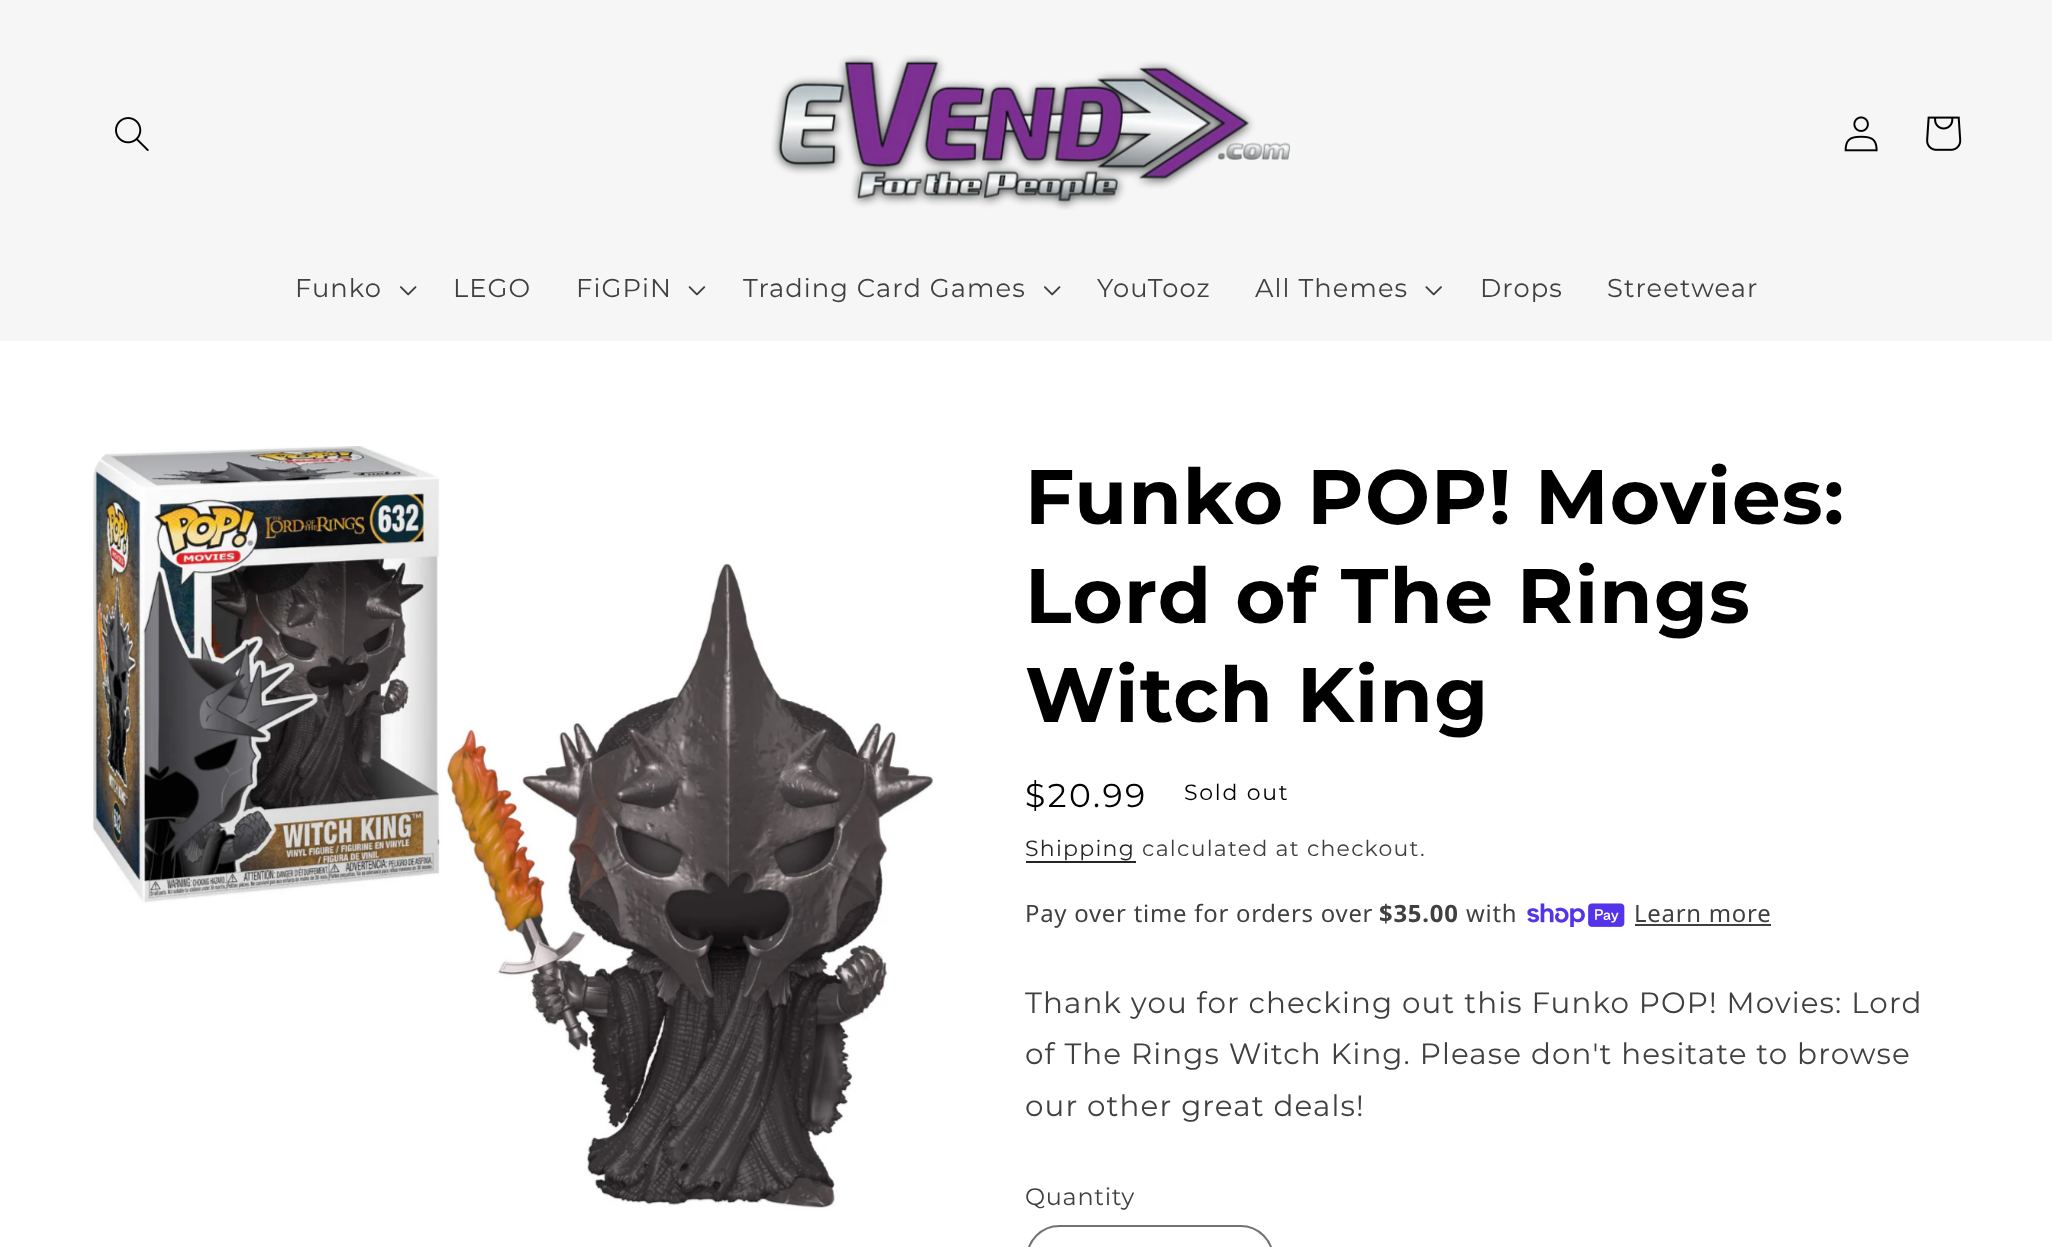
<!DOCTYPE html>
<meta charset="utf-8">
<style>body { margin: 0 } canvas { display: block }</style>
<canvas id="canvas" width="2052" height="1247"></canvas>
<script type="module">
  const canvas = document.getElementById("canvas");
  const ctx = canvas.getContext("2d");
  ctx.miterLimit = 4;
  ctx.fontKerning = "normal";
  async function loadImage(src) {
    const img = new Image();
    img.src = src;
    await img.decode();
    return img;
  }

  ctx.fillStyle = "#ffffff";
  ctx.fillRect(0, 0, 2052, 1247);
  ctx.fillStyle = "#f6f6f6";
  ctx.fillRect(0, 0, 2052, 341);
  ctx.drawImage(await loadImage("img1.png"), 115, 117, 34, 34);
  ctx.drawImage(await loadImage("img2.png"), 771, 55, 519, 155);
  ctx.drawImage(await loadImage("img3.png"), 1844, 116, 34, 36);
  ctx.drawImage(await loadImage("img4.png"), 1926, 116, 36, 35);
  ctx.letterSpacing = "1.1px";
  ctx.font = "100 25.75px Montserrat";
  ctx.fillStyle = "#404040";
  ctx.fillText("Funko", 295, 297);
  ctx.drawImage(await loadImage("img5.png"), 400, 286, 17, 10);
  ctx.fillText("LEGO", 453, 297);
  ctx.fillText("FiGPiN", 576, 297);
  ctx.drawImage(await loadImage("img6.png"), 688, 286, 18, 10);
  ctx.fillText("Trading Card Games", 743, 297);
  ctx.drawImage(await loadImage("img5.png"), 1044, 286, 17, 10);
  ctx.fillText("YouTooz", 1097, 297);
  ctx.fillText("All Themes", 1255, 297);
  ctx.drawImage(await loadImage("img7.png"), 1425, 286, 17, 10);
  ctx.fillText("Drops", 1480, 297);
  ctx.fillText("Streetwear", 1607, 297);
  ctx.drawImage(await loadImage("img8.png"), 93, 446, 840, 762);
  ctx.letterSpacing = "1.2px";
  ctx.font = "bold 77px Montserrat";
  ctx.fillStyle = "#000000";
  ctx.fillText("Funko POP! Movies:", 1025, 524);
  ctx.fillText("Lord of The Rings", 1025, 623);
  ctx.fillText("Witch King", 1025, 722);
  ctx.letterSpacing = "2.5px";
  ctx.font = "100 33px Montserrat";
  ctx.fillText("$20.99", 1025, 807);
  ctx.letterSpacing = "1.75px";
  ctx.font = "100 22px Montserrat";
  ctx.fillText("Sold out", 1184, 800);
  ctx.letterSpacing = "1.25px";
  ctx.fillStyle = "#262626";
  ctx.fillText("Shipping", 1025, 856);
  ctx.fillRect(1026, 861, 110, 2);
  ctx.fillStyle = "#404040";
  ctx.fillText("calculated at checkout.", 1142, 856);
  ctx.letterSpacing = "0.75px";
  ctx.font = "23.9px Noto Sans";
  ctx.fillText("Pay over time for orders over", 1025, 922);
  ctx.font = "bold 23.9px Noto Sans";
  ctx.fillText("$35.00", 1379, 922);
  ctx.font = "23.9px Noto Sans";
  ctx.fillText("with", 1466, 922);
  ctx.drawImage(await loadImage("img9.png"), 1527, 903, 98, 24);
  ctx.fillText("Learn more", 1634, 922);
  ctx.fillRect(1635, 924, 136, 2);
  ctx.letterSpacing = "1.1px";
  ctx.font = "100 29.4px Montserrat";
  ctx.fillText("Thank you for checking out this Funko POP! Movies: Lord", 1025, 1013);
  ctx.fillText("of The Rings Witch King. Please don't hesitate to browse", 1025, 1064);
  ctx.fillText("our other great deals!", 1025, 1116);
  ctx.letterSpacing = "0.75px";
  ctx.font = "100 23.9px Montserrat";
  ctx.fillText("Quantity", 1025, 1205);
  ctx.beginPath();
  ctx.roundRect(1027, 1226, 246, 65, 42);
  ctx.strokeStyle = "#737373";
  ctx.lineWidth = 2;
  ctx.stroke();
</script>
